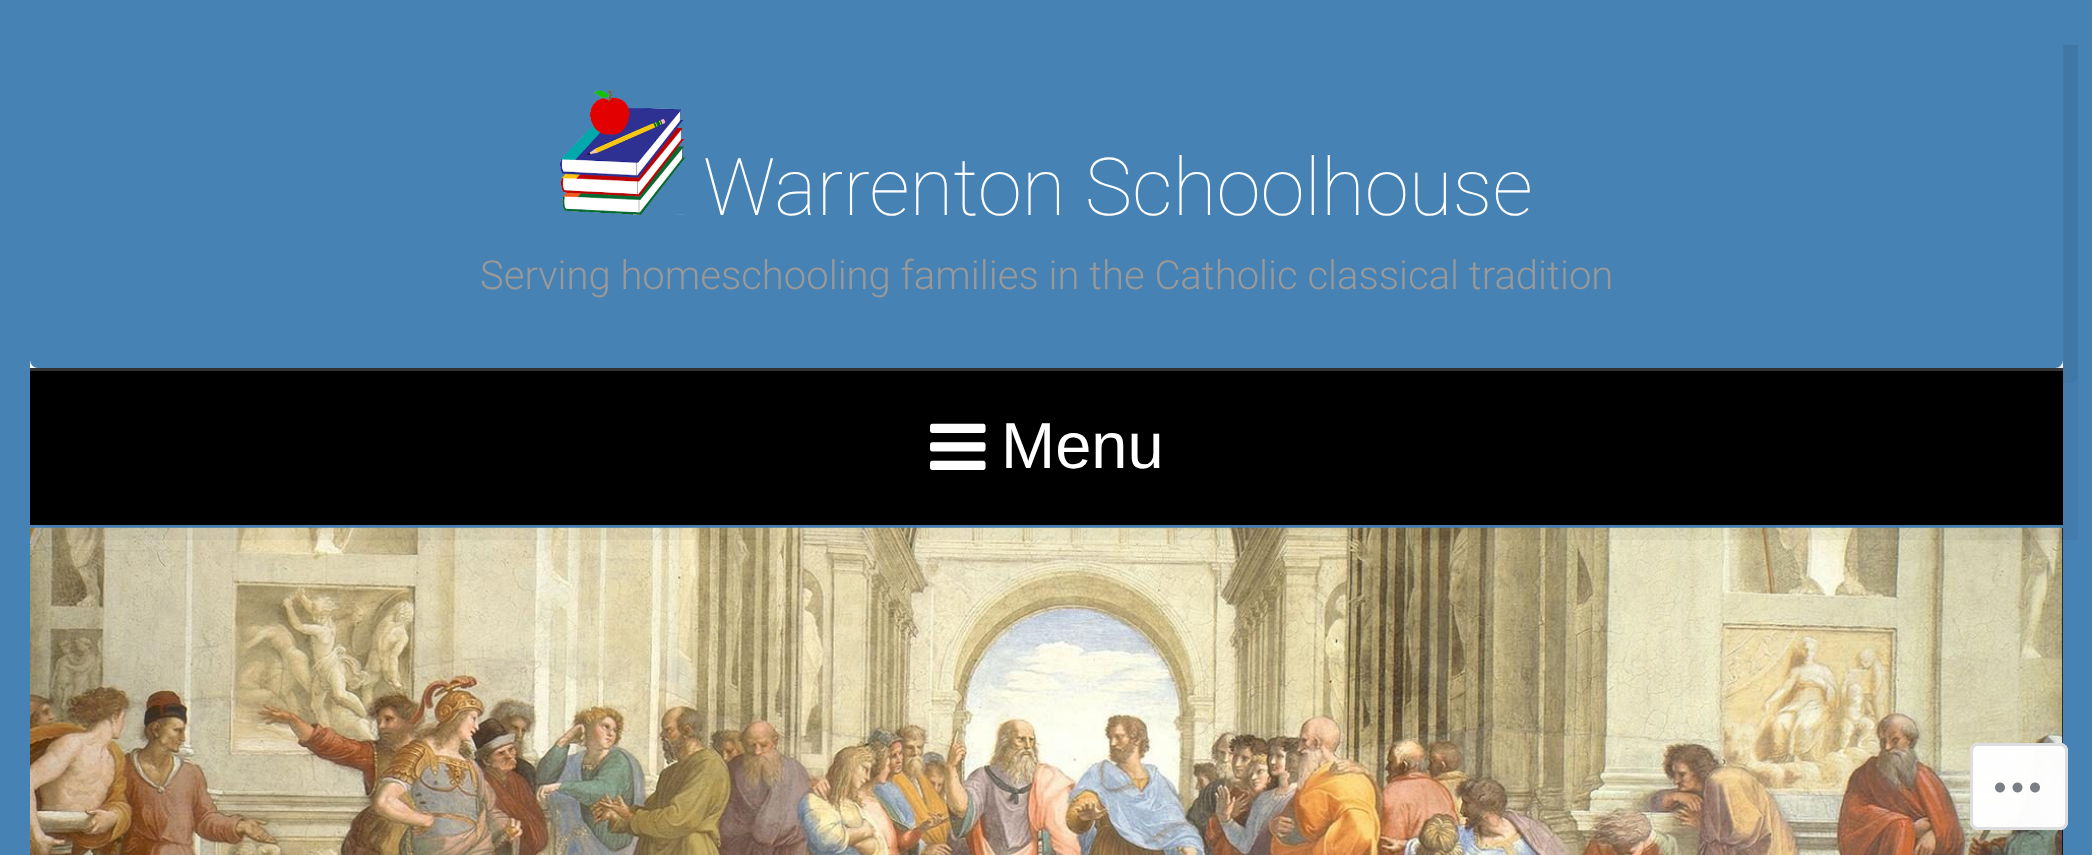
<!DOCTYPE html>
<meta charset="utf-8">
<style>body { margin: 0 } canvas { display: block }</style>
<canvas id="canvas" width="2092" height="855"></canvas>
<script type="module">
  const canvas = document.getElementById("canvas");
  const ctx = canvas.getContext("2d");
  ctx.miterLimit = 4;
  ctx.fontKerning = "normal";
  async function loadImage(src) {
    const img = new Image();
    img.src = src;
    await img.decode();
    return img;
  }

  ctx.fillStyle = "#4682b4";
  ctx.fillRect(0, 0, 2092, 855);
  ctx.fillStyle = "#000000";
  ctx.fillRect(2062, 528, 1, 327);
  ctx.drawImage(await loadImage("img3.png"), 30, 527, 2033, 328);
  ctx.fillStyle = "rgba(0, 0, 0, 0.04)";
  ctx.beginPath();
  ctx.moveTo(45, 525);
  ctx.lineTo(45, 540);
  ctx.lineTo(2078, 540);
  ctx.lineTo(2078, 45);
  ctx.lineTo(2062, 45);
  ctx.lineTo(2062, 525);
  ctx.closePath();
  ctx.fill();
  ctx.fillStyle = "#ffffff";
  ctx.fillRect(30, 360, 2033, 8);
  ctx.fillStyle = "rgba(0, 0, 0, 0.04)";
  ctx.beginPath();
  ctx.moveTo(45, 368);
  ctx.lineTo(45, 375);
  ctx.bezierCurveTo(45, 379, 49, 383, 53, 383);
  ctx.lineTo(2070, 383);
  ctx.bezierCurveTo(2074, 383, 2078, 379, 2078, 375);
  ctx.lineTo(2078, 45);
  ctx.lineTo(2062, 45);
  ctx.lineTo(2062, 360);
  ctx.bezierCurveTo(2062, 364, 2059, 368, 2055, 368);
  ctx.closePath();
  ctx.fill();
  ctx.fillStyle = "#4682b4";
  ctx.beginPath();
  ctx.roundRect(30, 30, 2033, 338, [0, 0, 8, 8]);
  ctx.fill();
  ctx.drawImage(await loadImage("img1.png"), 560, 90, 125, 125);
  ctx.font = "100 80px Roboto";
  ctx.fillStyle = "#ffffff";
  ctx.fillText("Warrenton Schoolhouse", 703, 215);
  ctx.font = "300 40px Roboto";
  ctx.fillStyle = "#999999";
  ctx.fillText("Serving homeschooling families in the Catholic classical tradition", 480, 289);
  ctx.fillStyle = "#000000";
  ctx.fillRect(30, 371, 2033, 154);
  ctx.fillStyle = "#333333";
  ctx.fillRect(30, 368, 2033, 3);
  ctx.drawImage(await loadImage("img2.png"), 930, 423, 56, 47);
  ctx.font = "65px Liberation Sans";
  ctx.fillStyle = "#ffffff";
  ctx.fillText("Menu", 1001, 468);
  ctx.fillStyle = "rgba(255, 255, 255, 0.98)";
  ctx.beginPath();
  ctx.roundRect(1970, 743, 98, 87, 8);
  ctx.fill();
  ctx.beginPath();
  ctx.roundRect(1971.5, 744.5, 95, 84, 6.5);
  ctx.strokeStyle = "rgba(220, 220, 222, 0.98)";
  ctx.lineWidth = 3;
  ctx.stroke();
  ctx.drawImage(await loadImage("img4.png"), 1995, 782, 45, 11);
</script>
